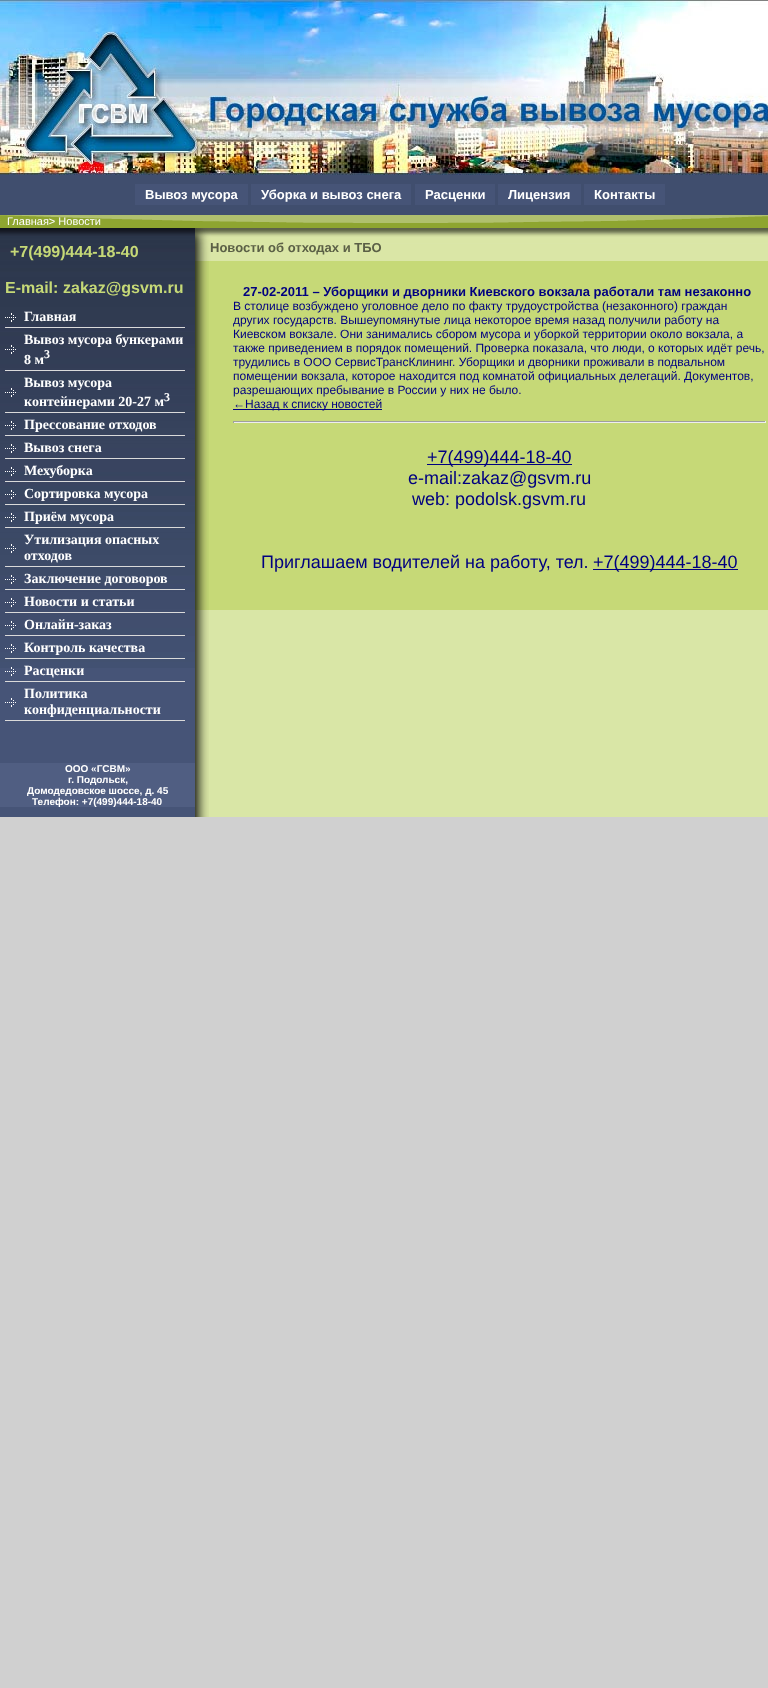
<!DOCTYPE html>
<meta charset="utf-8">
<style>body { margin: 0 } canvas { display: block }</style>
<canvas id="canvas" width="768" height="1688"></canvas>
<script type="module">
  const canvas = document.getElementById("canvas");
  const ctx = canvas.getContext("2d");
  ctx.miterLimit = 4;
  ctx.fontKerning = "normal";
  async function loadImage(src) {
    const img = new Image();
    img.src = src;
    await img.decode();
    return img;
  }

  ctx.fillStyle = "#d0d0d0";
  ctx.fillRect(0, 0, 768, 1688);
  ctx.fillStyle = "#404e6e";
  ctx.fillRect(0, 175, 768, 40);
  ctx.drawImage(await loadImage("img1.png"), 0, 0, 768, 175);
  ctx.fillStyle = "#465477";
  ctx.fillRect(135, 184, 113, 21);
  ctx.font = "bold 13px Liberation Sans";
  ctx.fillStyle = "#ffffff";
  ctx.fillText("Вывоз мусора", 145, 199);
  ctx.fillStyle = "#465477";
  ctx.fillRect(251, 184, 160, 21);
  ctx.fillStyle = "#ffffff";
  ctx.fillText("Уборка и вывоз снега", 261, 199);
  ctx.fillStyle = "#465477";
  ctx.fillRect(415, 184, 80, 21);
  ctx.fillStyle = "#ffffff";
  ctx.fillText("Расценки", 425, 199);
  ctx.fillStyle = "#465477";
  ctx.fillRect(498, 184, 83, 21);
  ctx.fillStyle = "#ffffff";
  ctx.fillText("Лицензия", 508, 199);
  ctx.fillStyle = "#465477";
  ctx.fillRect(584, 184, 81, 21);
  ctx.fillStyle = "#ffffff";
  ctx.fillText("Контакты", 594, 199);
  ctx.fillStyle = "#8ea530";
  ctx.fillRect(0, 223, 768, 5);
  ctx.drawImage(await loadImage("img2.png"), 0, 215, 768, 8);
  ctx.font = "11px Liberation Sans";
  ctx.fillStyle = "#ffffff";
  ctx.fillText("Главная> Новости", 7, 225);
  ctx.fillStyle = "#465477";
  ctx.fillRect(0, 668, 195, 149);
  ctx.drawImage(await loadImage("img3.png"), 0, 228, 195, 440);
  ctx.font = "bold 16px Liberation Sans";
  ctx.fillStyle = "#c6d977";
  ctx.fillText("+7(499)444-18-40", 10, 257);
  ctx.fillText("E-mail:", 5, 293);
  ctx.fillText("zakaz@gsvm.ru", 63, 293);
  ctx.drawImage(await loadImage("img4.png"), 5, 313, 11, 9);
  ctx.fillStyle = "#dadada";
  ctx.fillRect(5, 327, 180, 1);
  ctx.font = "bold 14px Liberation Serif";
  ctx.fillStyle = "#ffffff";
  ctx.fillText("Главная", 24, 321);
  ctx.drawImage(await loadImage("img5.png"), 5, 345, 11, 9);
  ctx.fillStyle = "#dadada";
  ctx.fillRect(5, 370, 180, 1);
  ctx.fillStyle = "#ffffff";
  ctx.fillText("Вывоз мусора бункерами", 24, 344);
  ctx.fillText("8 м", 24, 364);
  ctx.font = "bold 12px Liberation Serif";
  ctx.fillText("3", 44, 358);
  ctx.drawImage(await loadImage("img6.png"), 5, 388, 11, 9);
  ctx.fillStyle = "#dadada";
  ctx.fillRect(5, 412, 180, 1);
  ctx.font = "bold 14px Liberation Serif";
  ctx.fillStyle = "#ffffff";
  ctx.fillText("Вывоз мусора", 24, 387);
  ctx.fillText("контейнерами 20-27 м", 24, 406);
  ctx.font = "bold 12px Liberation Serif";
  ctx.fillText("3", 164, 401);
  ctx.drawImage(await loadImage("img7.png"), 5, 421, 11, 9);
  ctx.fillStyle = "#dadada";
  ctx.fillRect(5, 435, 180, 1);
  ctx.font = "bold 14px Liberation Serif";
  ctx.fillStyle = "#ffffff";
  ctx.fillText("Прессование отходов", 24, 429);
  ctx.drawImage(await loadImage("img8.png"), 5, 444, 11, 9);
  ctx.fillStyle = "#dadada";
  ctx.fillRect(5, 458, 180, 1);
  ctx.fillStyle = "#ffffff";
  ctx.fillText("Вывоз снега", 24, 452);
  ctx.drawImage(await loadImage("img9.png"), 5, 467, 11, 9);
  ctx.fillStyle = "#dadada";
  ctx.fillRect(5, 481, 180, 1);
  ctx.fillStyle = "#ffffff";
  ctx.fillText("Мехуборка", 24, 475);
  ctx.drawImage(await loadImage("img10.png"), 5, 490, 11, 9);
  ctx.fillStyle = "#dadada";
  ctx.fillRect(5, 504, 180, 1);
  ctx.fillStyle = "#ffffff";
  ctx.fillText("Сортировка мусора", 24, 498);
  ctx.drawImage(await loadImage("img11.png"), 5, 513, 11, 9);
  ctx.fillStyle = "#dadada";
  ctx.fillRect(5, 527, 180, 1);
  ctx.fillStyle = "#ffffff";
  ctx.fillText("Приём мусора", 24, 521);
  ctx.drawImage(await loadImage("img12.png"), 5, 544, 11, 9);
  ctx.fillStyle = "#dadada";
  ctx.fillRect(5, 566, 180, 1);
  ctx.fillStyle = "#ffffff";
  ctx.fillText("Утилизация опасных", 24, 544);
  ctx.fillText("отходов", 24, 560);
  ctx.drawImage(await loadImage("img13.png"), 5, 575, 11, 9);
  ctx.fillStyle = "#dadada";
  ctx.fillRect(5, 589, 180, 1);
  ctx.fillStyle = "#ffffff";
  ctx.fillText("Заключение договоров", 24, 583);
  ctx.drawImage(await loadImage("img14.png"), 5, 598, 11, 9);
  ctx.fillStyle = "#dadada";
  ctx.fillRect(5, 612, 180, 1);
  ctx.fillStyle = "#ffffff";
  ctx.fillText("Новости и статьи", 24, 606);
  ctx.drawImage(await loadImage("img15.png"), 5, 621, 11, 9);
  ctx.fillStyle = "#dadada";
  ctx.fillRect(5, 635, 180, 1);
  ctx.fillStyle = "#ffffff";
  ctx.fillText("Онлайн-заказ", 24, 629);
  ctx.drawImage(await loadImage("img16.png"), 5, 644, 11, 9);
  ctx.fillStyle = "#dadada";
  ctx.fillRect(5, 658, 180, 1);
  ctx.fillStyle = "#ffffff";
  ctx.fillText("Контроль качества", 24, 652);
  ctx.drawImage(await loadImage("img17.png"), 5, 667, 11, 9);
  ctx.fillStyle = "#dadada";
  ctx.fillRect(5, 681, 180, 1);
  ctx.fillStyle = "#ffffff";
  ctx.fillText("Расценки", 24, 675);
  ctx.drawImage(await loadImage("img18.png"), 5, 698, 11, 9);
  ctx.fillStyle = "#dadada";
  ctx.fillRect(5, 720, 180, 1);
  ctx.fillStyle = "#ffffff";
  ctx.fillText("Политика", 24, 698);
  ctx.fillText("конфиденциальности", 24, 714);
  ctx.fillStyle = "#d9e6a6";
  ctx.fillRect(209, 610, 559, 207);
  ctx.drawImage(await loadImage("img19.png"), 195, 610, 14, 207);
  ctx.drawImage(await loadImage("img20.png"), 195, 228, 573, 33);
  ctx.font = "bold 13px Liberation Sans";
  ctx.fillStyle = "#5b6046";
  ctx.fillText("Новости об отходах и ТБО", 210, 252);
  ctx.fillStyle = "#c6d977";
  ctx.fillRect(209, 261, 559, 349);
  ctx.drawImage(await loadImage("img21.png"), 195, 261, 14, 349);
  ctx.fillStyle = "#000080";
  ctx.fillText("27-02-2011 – Уборщики и дворники Киевского вокзала работали там незаконно", 243, 296);
  ctx.font = "12px Liberation Sans";
  ctx.fillText("В столице возбуждено уголовное дело по факту трудоустройства (незаконного) граждан", 233, 310);
  ctx.fillText("других государств. Вышеупомянутые лица некоторое время назад получили работу на", 233, 324);
  ctx.fillText("Киевском вокзале. Они занимались сбором мусора и уборкой территории около вокзала, a", 233, 338);
  ctx.fillText("также приведением в порядок помещений. Проверка показала, что люди, o которых идёт речь,", 233, 352);
  ctx.fillText("трудились в ООО СервисТрансКлининг. Уборщики и дворники проживали в подвальном", 233, 366);
  ctx.fillText("помещении вокзала, которое находится под комнатой официальных делегаций. Документов,", 233, 380);
  ctx.fillText("разрешающих пребывание в России у них не было.", 233, 394);
  ctx.fillRect(233, 409, 149, 1);
  ctx.fillText("←Назад к списку новостей", 233, 408);
  ctx.fillStyle = "#9f9f9f";
  ctx.fillRect(233, 421, 533, 1);
  ctx.fillStyle = "#eeeeee";
  ctx.fillRect(765, 421, 1, 2);
  ctx.fillRect(233, 422, 533, 1);
  ctx.fillStyle = "#9f9f9f";
  ctx.fillRect(233, 421, 1, 2);
  ctx.fillStyle = "#000080";
  ctx.fillRect(427, 464, 145, 1);
  ctx.font = "18px Liberation Sans";
  ctx.fillText("+7(499)444-18-40", 427, 463);
  ctx.fillText("e-mail:zakaz@gsvm.ru", 408, 484);
  ctx.fillText("web: podolsk.gsvm.ru", 412, 505);
  ctx.fillText("Приглашаем водителей на работу, тел.", 261, 568);
  ctx.fillRect(593, 569, 145, 1);
  ctx.fillText("+7(499)444-18-40", 593, 568);
  ctx.fillStyle = "#505e82";
  ctx.fillRect(0, 763, 195, 44);
  ctx.font = "bold 10px Liberation Sans";
  ctx.fillStyle = "#ffffff";
  ctx.fillText("ООО «ГСВМ»", 65, 772);
  ctx.fillText("г. Подольск,", 68, 783);
  ctx.fillText("Домодедовское шоссе, д. 45", 27, 794);
  ctx.fillText("Телефон: +7(499)444-18-40", 32, 805);
</script>
